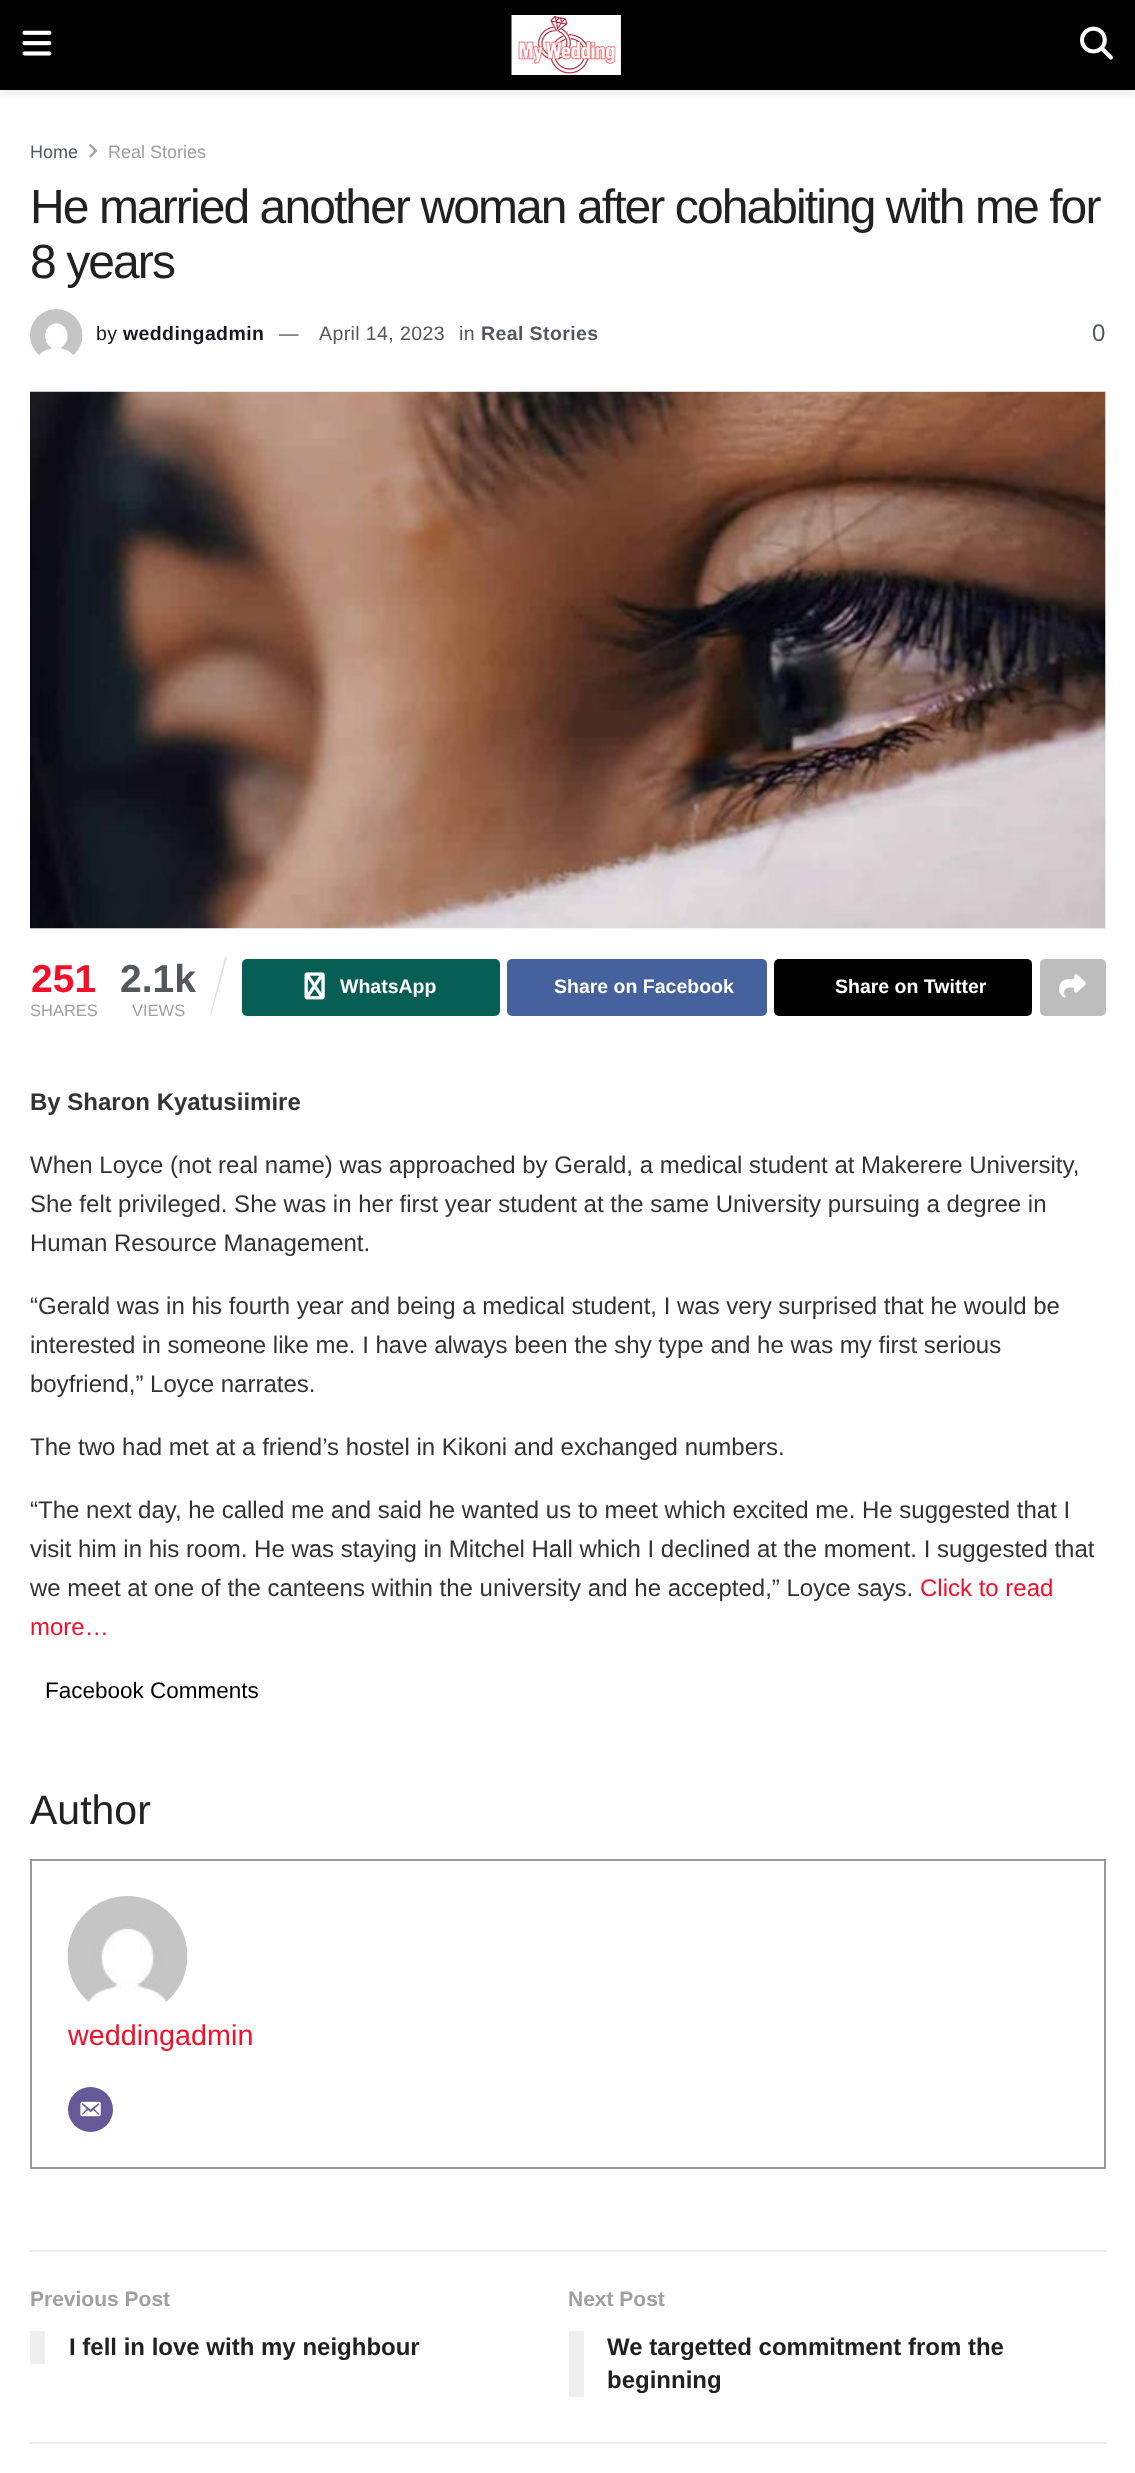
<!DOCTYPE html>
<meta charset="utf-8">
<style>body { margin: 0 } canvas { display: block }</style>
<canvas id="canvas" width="1135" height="2473"></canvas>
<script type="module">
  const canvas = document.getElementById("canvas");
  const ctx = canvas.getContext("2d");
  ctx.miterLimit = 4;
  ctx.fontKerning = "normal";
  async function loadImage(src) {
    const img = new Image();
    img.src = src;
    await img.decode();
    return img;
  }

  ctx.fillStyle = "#ffffff";
  ctx.fillRect(0, 0, 1135, 2473);
  ctx.fillStyle = "rgba(0, 0, 0, 0.1)";
  ctx.filter = "blur(4.5px)";
  ctx.beginPath();
  ctx.rect(0, 3, 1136, 90);
  ctx.fill();
  ctx.filter = "none";
  ctx.fillStyle = "#000000";
  ctx.fillRect(0, 0, 1135, 90);
  ctx.drawImage(await loadImage("img1.png"), 22, 30, 30, 26);
  ctx.drawImage(await loadImage("img2.png"), 511, 15, 110, 60);
  ctx.drawImage(await loadImage("img3.png"), 1080, 26, 33, 34);
  ctx.font = "18px Liberation Sans";
  ctx.fillStyle = "#53585c";
  ctx.fillText("Home", 30, 158);
  ctx.drawImage(await loadImage("img4.png"), 89, 144, 9, 14);
  ctx.fillStyle = "#a0a0a0";
  ctx.fillText("Real Stories", 108, 158);
  ctx.letterSpacing = "-1.92px";
  ctx.font = "48px Liberation Sans";
  ctx.fillStyle = "#212121";
  ctx.fillText("He married another woman after cohabiting with me for", 30, 223);
  ctx.fillText("8 years", 30, 278);
  ctx.drawImage(await loadImage("img5.png"), 30, 309, 53, 46);
  ctx.letterSpacing = "0.4px";
  ctx.font = "19.5px Liberation Sans";
  ctx.fillStyle = "#161925";
  ctx.fillText("by", 96, 340);
  ctx.font = "bold 19.5px Liberation Sans";
  ctx.fillText("weddingadmin", 123, 340);
  ctx.font = "19.5px Liberation Sans";
  ctx.fillStyle = "#53585c";
  ctx.fillText("—", 279, 340);
  ctx.fillText("April 14, 2023", 319, 340);
  ctx.fillText("in", 459, 340);
  ctx.font = "bold 19.5px Liberation Sans";
  ctx.fillText("Real Stories", 481, 340);
  ctx.font = "24px Liberation Sans";
  ctx.fillText("0", 1092, 341);
  ctx.fillStyle = "#f7f7f7";
  ctx.fillRect(30, 392, 1076, 537);
  ctx.drawImage(await loadImage("img6.png"), 30, 391, 1076, 538);
  ctx.letterSpacing = "0px";
  ctx.font = "bold 39px Liberation Sans";
  ctx.fillStyle = "#f70d28";
  ctx.fillText("251", 31, 992);
  ctx.font = "16.5px Liberation Sans";
  ctx.fillStyle = "#a0a0a0";
  ctx.fillText("SHARES", 30, 1016);
  ctx.font = "bold 39px Liberation Sans";
  ctx.fillStyle = "#53585c";
  ctx.fillText("2.1k", 120, 992);
  ctx.fillStyle = "#e0e0e0";
  ctx.beginPath();
  ctx.moveTo(225, 957);
  ctx.lineTo(227, 957);
  ctx.lineTo(211, 1015);
  ctx.lineTo(210, 1015);
  ctx.closePath();
  ctx.fill();
  ctx.font = "16.5px Liberation Sans";
  ctx.fillStyle = "#a0a0a0";
  ctx.fillText("VIEWS", 132, 1016);
  ctx.fillStyle = "#075e54";
  ctx.beginPath();
  ctx.roundRect(242, 959, 258, 57, 5);
  ctx.fill();
  ctx.drawImage(await loadImage("img7.png"), 304, 972, 21, 28);
  ctx.font = "bold 19.5px Liberation Sans";
  ctx.fillStyle = "#ffffff";
  ctx.fillText("WhatsApp", 340, 993);
  ctx.fillStyle = "#45629f";
  ctx.beginPath();
  ctx.roundRect(507, 959, 260, 57, 5);
  ctx.fill();
  ctx.fillStyle = "#ffffff";
  ctx.fillText("Share on Facebook", 554, 993);
  ctx.fillStyle = "#000000";
  ctx.beginPath();
  ctx.roundRect(774, 959, 258, 57, 5);
  ctx.fill();
  ctx.fillStyle = "#ffffff";
  ctx.fillText("Share on Twitter", 835, 993);
  ctx.fillStyle = "#bdbdbd";
  ctx.beginPath();
  ctx.roundRect(1040, 959, 66, 57, 5);
  ctx.fill();
  ctx.drawImage(await loadImage("img8.png"), 1059, 974, 27, 24);
  ctx.font = "bold 24px Liberation Sans";
  ctx.fillStyle = "#333333";
  ctx.fillText("By Sharon Kyatusiimire", 30, 1110);
  ctx.font = "24px Liberation Sans";
  ctx.fillText("When Loyce (not real name) was approached by Gerald, a medical student at Makerere University,", 30, 1173);
  ctx.fillText("She felt privileged. She was in her first year student at the same University pursuing a degree in", 30, 1212);
  ctx.fillText("Human Resource Management.", 30, 1251);
  ctx.fillText("“Gerald was in his fourth year and being a medical student, I was very surprised that he would be", 30, 1314);
  ctx.fillText("interested in someone like me. I have always been the shy type and he was my first serious", 30, 1353);
  ctx.fillText("boyfriend,” Loyce narrates.", 30, 1392);
  ctx.fillText("The two had met at a friend’s hostel in Kikoni and exchanged numbers.", 30, 1455);
  ctx.fillText("“The next day, he called me and said he wanted us to meet which excited me. He suggested that I", 30, 1518);
  ctx.fillText("visit him in his room. He was staying in Mitchel Hall which I declined at the moment. I suggested that", 30, 1557);
  ctx.fillText("we meet at one of the canteens within the university and he accepted,” Loyce says.", 30, 1596);
  ctx.fillStyle = "#f70d28";
  ctx.fillText("Click to read", 920, 1596);
  ctx.fillText("more…", 30, 1635);
  ctx.font = "22.5px Liberation Sans";
  ctx.fillStyle = "#000000";
  ctx.fillText("Facebook Comments", 45, 1698);
  ctx.font = "41px Liberation Sans";
  ctx.fillStyle = "#212121";
  ctx.fillText("Author", 30, 1824);
  ctx.strokeStyle = "#999999";
  ctx.lineWidth = 2;
  ctx.strokeRect(31, 1860, 1074, 308);
  ctx.drawImage(await loadImage("img9.png"), 67, 1896, 121, 106);
  ctx.font = "28.75px Liberation Sans";
  ctx.fillStyle = "#f70d28";
  ctx.fillText("weddingadmin", 68, 2045);
  ctx.fillStyle = "#655997";
  ctx.beginPath();
  ctx.arc(90.5, 2109.5, 22.5, 0, Math.PI * 2);
  ctx.fill();
  ctx.drawImage(await loadImage("img10.png"), 80, 2101, 21, 16);
  ctx.fillStyle = "#eeeeee";
  ctx.fillRect(30, 2250, 1076, 2);
  ctx.fillRect(30, 2442, 1076, 2);
  ctx.font = "bold 21px Liberation Sans";
  ctx.fillStyle = "#a0a0a0";
  ctx.fillText("Previous Post", 30, 2306);
  ctx.fillStyle = "#eeeeee";
  ctx.fillRect(30, 2331, 15, 33);
  ctx.font = "bold 24px Liberation Sans";
  ctx.fillStyle = "#212121";
  ctx.fillText("I fell in love with my neighbour", 69, 2355);
  ctx.font = "bold 21px Liberation Sans";
  ctx.fillStyle = "#a0a0a0";
  ctx.fillText("Next Post", 568, 2306);
  ctx.fillStyle = "#eeeeee";
  ctx.fillRect(569, 2331, 15, 66);
  ctx.font = "bold 24px Liberation Sans";
  ctx.fillStyle = "#212121";
  ctx.fillText("We targetted commitment from the", 607, 2355);
  ctx.fillText("beginning", 607, 2388);
</script>
